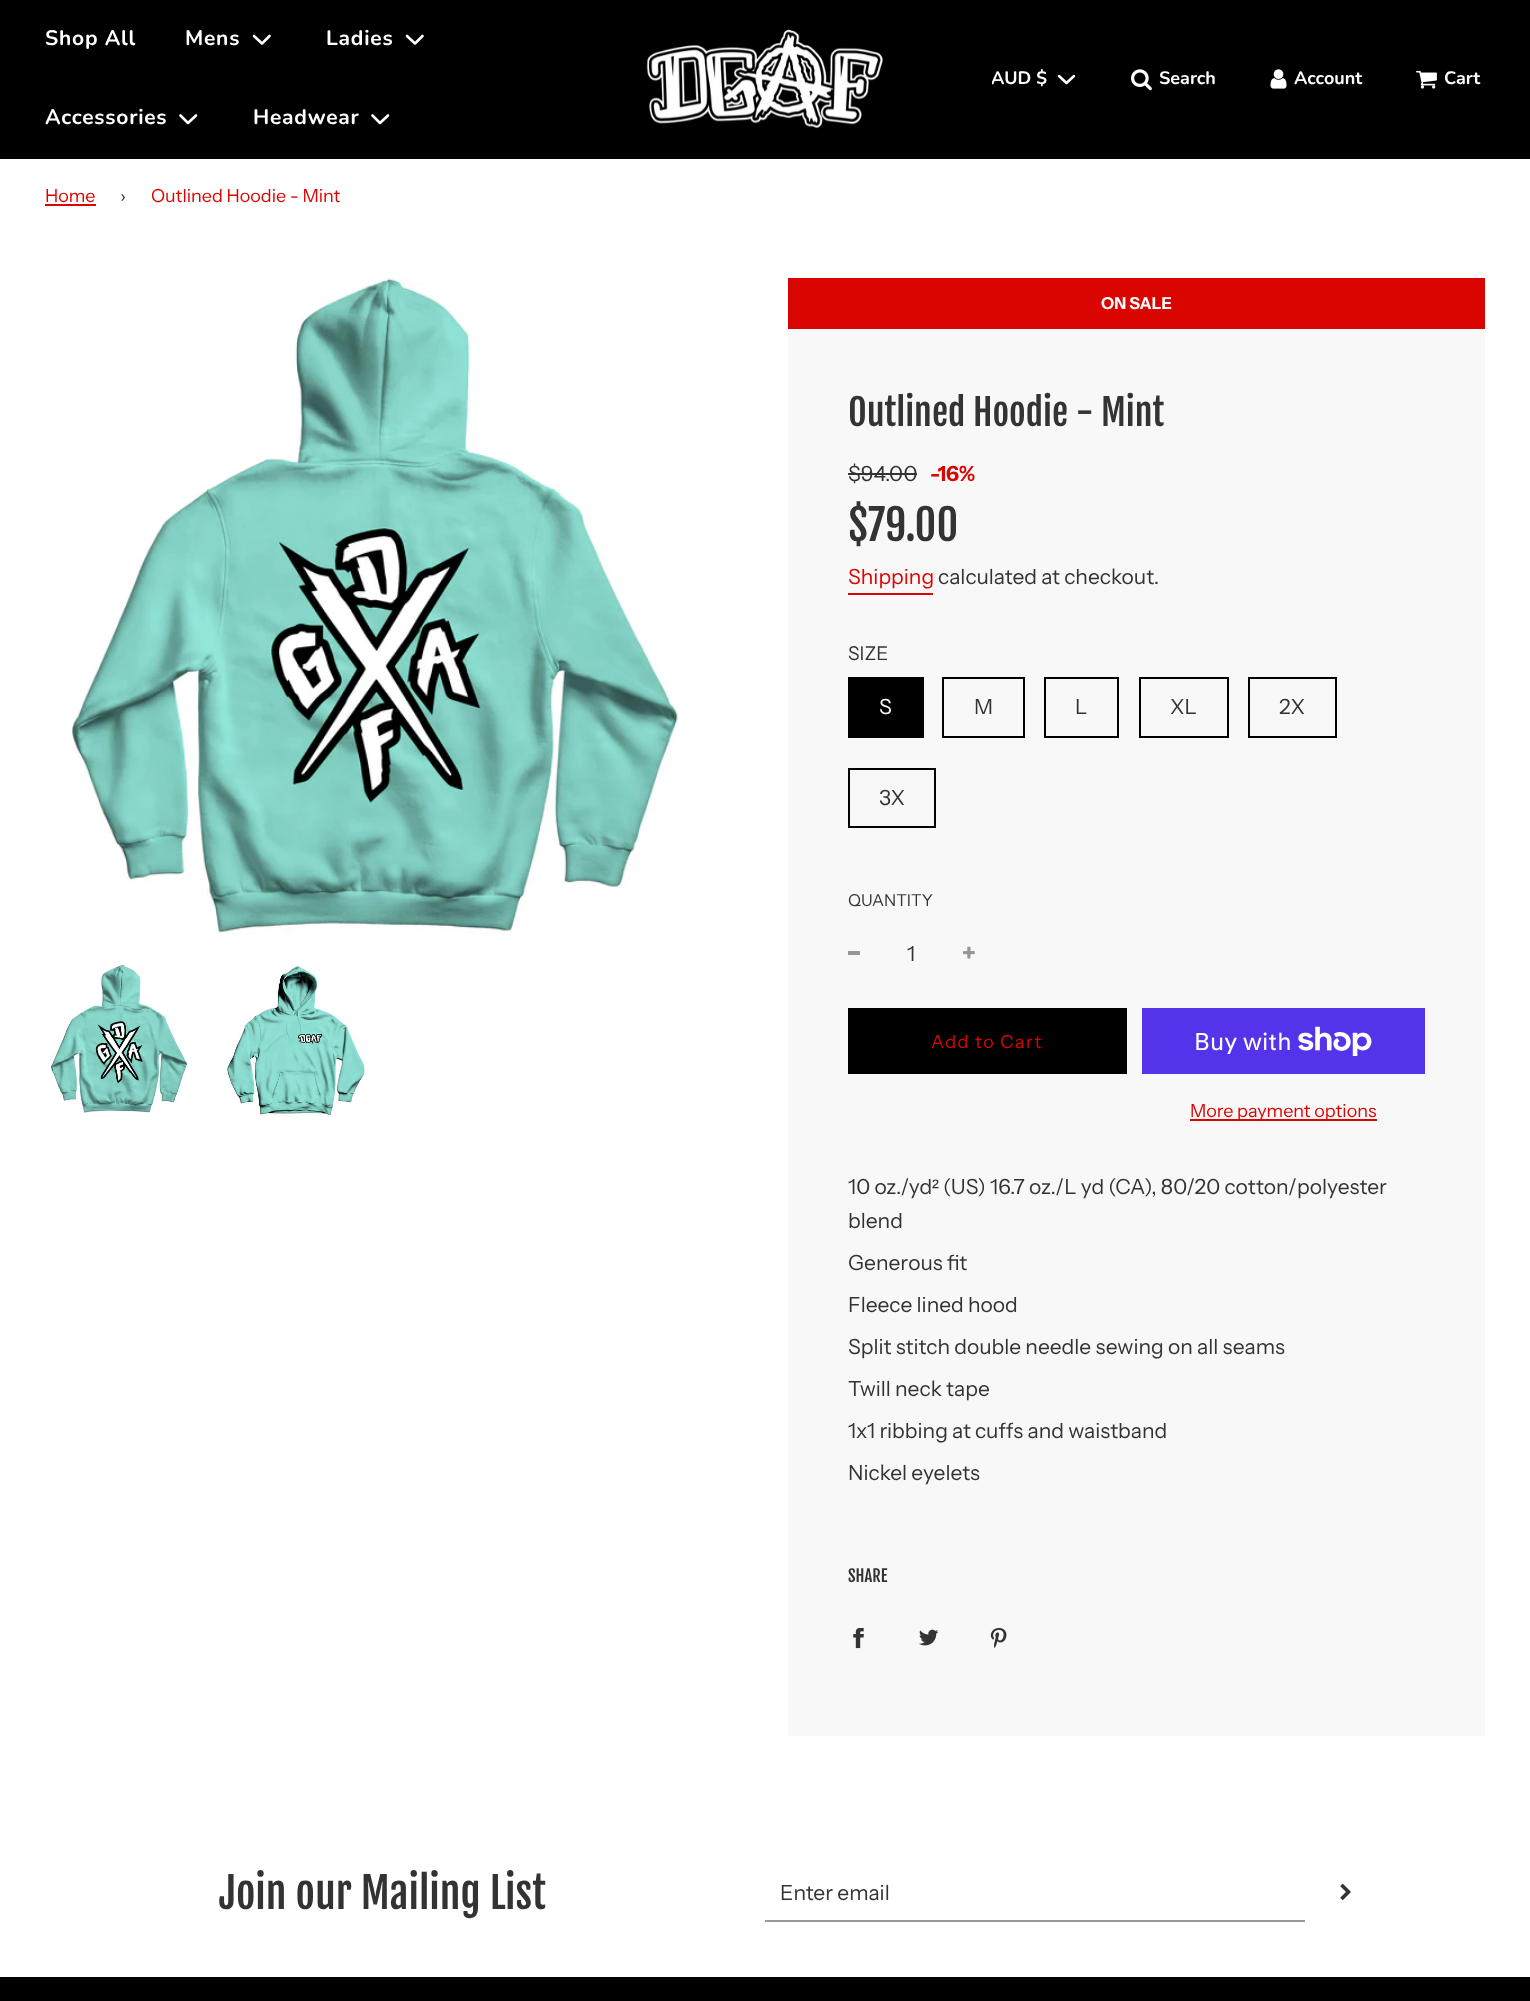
<!DOCTYPE html>
<meta charset="utf-8">
<style>body { margin: 0 } canvas { display: block }</style>
<canvas id="canvas" width="1530" height="2001"></canvas>
<script type="module">
  const canvas = document.getElementById("canvas");
  const ctx = canvas.getContext("2d");
  ctx.miterLimit = 4;
  ctx.fontKerning = "normal";
  async function loadImage(src) {
    const img = new Image();
    img.src = src;
    await img.decode();
    return img;
  }

  ctx.fillStyle = "#ffffff";
  ctx.fillRect(0, 0, 1530, 2001);
  ctx.fillStyle = "#000000";
  ctx.fillRect(0, 0, 1530, 159);
  ctx.letterSpacing = "0.75px";
  ctx.font = "bold 21px Nunito";
  ctx.fillStyle = "#ffffff";
  ctx.fillText("Shop All", 45, 45);
  ctx.fillText("Mens", 185, 45);
  ctx.beginPath();
  ctx.moveTo(254, 36);
  ctx.lineTo(262, 43.5);
  ctx.lineTo(269.5, 36);
  ctx.strokeStyle = "#ffffff";
  ctx.lineWidth = 2.6;
  ctx.lineCap = "round";
  ctx.lineJoin = "round";
  ctx.stroke();
  ctx.fillText("Ladies", 326, 45);
  ctx.beginPath();
  ctx.moveTo(407, 36);
  ctx.lineTo(415, 43.5);
  ctx.lineTo(422.5, 36);
  ctx.stroke();
  ctx.fillText("Accessories", 45, 124);
  ctx.beginPath();
  ctx.moveTo(180.5, 115.5);
  ctx.lineTo(188, 123);
  ctx.lineTo(196, 115.5);
  ctx.stroke();
  ctx.fillText("Headwear", 253, 124);
  ctx.beginPath();
  ctx.moveTo(372.5, 115.5);
  ctx.lineTo(380, 123);
  ctx.lineTo(388, 115.5);
  ctx.stroke();
  ctx.drawImage(await loadImage("img1.png"), 646, 29, 237, 100);
  ctx.save();
  ctx.beginPath();
  ctx.rect(992, 65, 55, 28);
  ctx.clip();
  ctx.letterSpacing = "0px";
  ctx.font = "bold 18px Nunito";
  ctx.fillText("AUD $", 991, 84);
  ctx.restore();
  ctx.beginPath();
  ctx.moveTo(1059, 76);
  ctx.lineTo(1066.5, 83);
  ctx.lineTo(1074, 76);
  ctx.lineWidth = 2.5;
  ctx.stroke();
  ctx.drawImage(await loadImage("img2.png"), 1131, 69, 21, 22);
  ctx.letterSpacing = "0px";
  ctx.font = "bold 18px Nunito";
  ctx.fillText("Search", 1159, 84);
  ctx.drawImage(await loadImage("img3.png"), 1270, 69, 17, 20);
  ctx.fillText("Account", 1294, 84);
  ctx.drawImage(await loadImage("img4.png"), 1416, 70, 21, 19);
  ctx.fillText("Cart", 1444, 84);
  ctx.font = "18px Instrument Sans";
  ctx.fillStyle = "#da0500";
  ctx.fillText("Home", 45, 202);
  ctx.fillRect(45, 204, 51, 2);
  ctx.fillStyle = "#333333";
  ctx.fillText("›", 120, 202);
  ctx.fillStyle = "#da0500";
  ctx.fillText("Outlined Hoodie - Mint", 151, 202);
  ctx.drawImage(await loadImage("img5.png"), 71, 277, 607, 657);
  ctx.drawImage(await loadImage("img6.png"), 51, 964, 136, 149);
  ctx.drawImage(await loadImage("img7.png"), 227, 965, 139, 150);
  ctx.fillRect(788, 278, 697, 51);
  ctx.font = "bold 16.5px Instrument Sans";
  ctx.fillStyle = "#ffffff";
  ctx.fillText("ON SALE", 1101, 309);
  ctx.fillStyle = "#f8f8f8";
  ctx.fillRect(788, 329, 697, 1407);
  ctx.font = "36px Fjalla One";
  ctx.fillStyle = "#333333";
  ctx.fillText("Outlined Hoodie - Mint", 848, 426);
  ctx.font = "21px Instrument Sans";
  ctx.fillText("$94.00", 848, 481);
  ctx.fillRect(848, 473, 69, 2);
  ctx.font = "bold 21px Instrument Sans";
  ctx.fillStyle = "#da0500";
  ctx.fillText("-", 930, 481);
  ctx.fillText("16%", 938, 481);
  ctx.font = "42px Fjalla One";
  ctx.fillStyle = "#333333";
  ctx.fillText("$79.00", 848, 541);
  ctx.font = "21px Instrument Sans";
  ctx.fillStyle = "#da0500";
  ctx.fillText("Shipping", 848, 584);
  ctx.fillRect(848, 593, 85, 2);
  ctx.fillStyle = "#333333";
  ctx.fillText("calculated at checkout.", 938, 584);
  ctx.font = "19px Instrument Sans";
  ctx.fillText("SIZE", 848, 660);
  ctx.fillStyle = "#000000";
  ctx.fillRect(848, 677, 76, 61);
  ctx.font = "21px Instrument Sans";
  ctx.fillStyle = "#ffffff";
  ctx.fillText("S", 879, 714);
  ctx.strokeStyle = "#000000";
  ctx.lineWidth = 2;
  ctx.lineJoin = "miter";
  ctx.strokeRect(943, 678, 81, 59);
  ctx.fillStyle = "#333333";
  ctx.fillText("M", 974, 714);
  ctx.strokeRect(1045, 678, 73, 59);
  ctx.fillText("L", 1075, 714);
  ctx.strokeRect(1140, 678, 88, 59);
  ctx.fillText("XL", 1170, 714);
  ctx.strokeRect(1249, 678, 87, 59);
  ctx.fillText("2X", 1279, 714);
  ctx.strokeRect(849, 769, 86, 58);
  ctx.fillText("3X", 879, 805);
  ctx.font = "16.5px Instrument Sans";
  ctx.fillText("QUANTITY", 848, 906);
  ctx.fillStyle = "#969696";
  ctx.fillRect(848, 951, 12, 4);
  ctx.font = "21px Instrument Sans";
  ctx.fillStyle = "#333333";
  ctx.fillText("1", 907, 961);
  ctx.drawImage(await loadImage("img8.png"), 963, 946, 12, 13);
  ctx.fillStyle = "#000000";
  ctx.fillRect(848, 1008, 279, 66);
  ctx.letterSpacing = "1.5px";
  ctx.font = "18px Instrument Sans";
  ctx.fillStyle = "#da0500";
  ctx.fillText("Add to Cart", 931, 1048);
  ctx.fillStyle = "#5433eb";
  ctx.fillRect(1142, 1008, 283, 66);
  ctx.letterSpacing = "0px";
  ctx.font = "24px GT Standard";
  ctx.fillStyle = "#ffffff";
  ctx.fillText("Buy with", 1194, 1050);
  ctx.drawImage(await loadImage("img9.png"), 1298, 1026, 74, 30);
  ctx.fillStyle = "#da0500";
  ctx.fillRect(1190, 1119, 187, 2);
  ctx.font = "18px Instrument Sans";
  ctx.fillText("More payment options", 1190, 1117);
  ctx.font = "21px Instrument Sans";
  ctx.fillStyle = "#333333";
  ctx.fillText("10 oz./yd", 848, 1194);
  ctx.font = "21px Liberation Sans";
  ctx.fillText("²", 932, 1194);
  ctx.font = "21px Instrument Sans";
  ctx.fillText("(US) 16.7 oz./L yd (CA), 80/20 cotton/polyester", 943, 1194);
  ctx.fillText("blend", 848, 1228);
  ctx.fillText("Generous fit", 848, 1270);
  ctx.fillText("Fleece lined hood", 848, 1312);
  ctx.fillText("Split stitch double needle sewing on all seams", 848, 1354);
  ctx.fillText("Twill neck tape", 848, 1396);
  ctx.fillText("1x1 ribbing at cuffs and waistband", 848, 1438);
  ctx.fillText("Nickel eyelets", 848, 1480);
  ctx.font = "16.5px Fjalla One";
  ctx.fillText("SHARE", 848, 1582);
  ctx.drawImage(await loadImage("img10.png"), 853, 1628, 11, 21);
  ctx.drawImage(await loadImage("img11.png"), 919, 1629, 20, 17);
  ctx.drawImage(await loadImage("img12.png"), 990, 1628, 17, 20);
  ctx.font = "42px Fjalla One";
  ctx.fillText("Join our Mailing List", 219, 1909);
  ctx.fillStyle = "#999999";
  ctx.fillRect(765, 1920, 540, 2);
  ctx.font = "21px Instrument Sans";
  ctx.fillStyle = "#333333";
  ctx.fillText("Enter email", 780, 1900);
  ctx.drawImage(await loadImage("img13.png"), 1340, 1883, 11, 17);
  ctx.fillStyle = "#000000";
  ctx.fillRect(0, 1977, 1530, 24);
</script>
